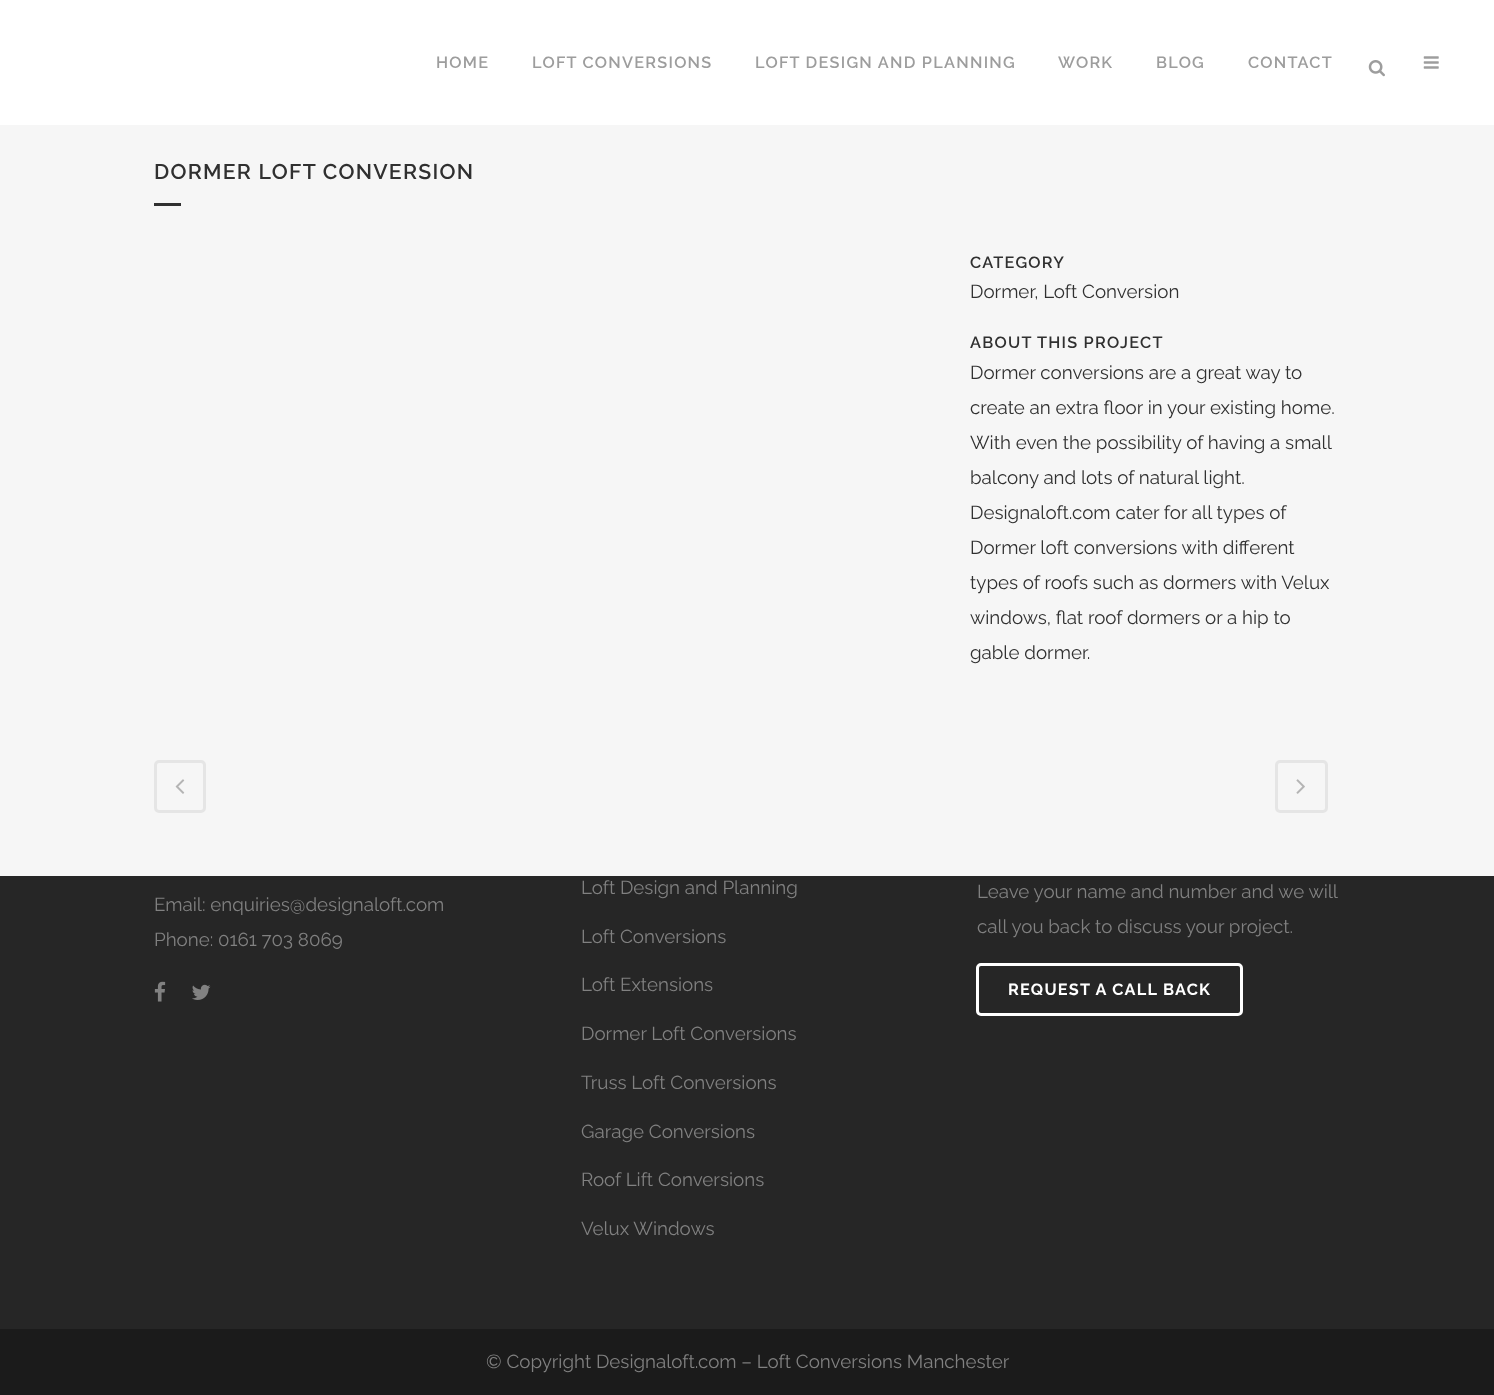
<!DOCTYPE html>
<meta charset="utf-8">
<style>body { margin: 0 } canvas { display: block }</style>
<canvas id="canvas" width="1494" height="1395"></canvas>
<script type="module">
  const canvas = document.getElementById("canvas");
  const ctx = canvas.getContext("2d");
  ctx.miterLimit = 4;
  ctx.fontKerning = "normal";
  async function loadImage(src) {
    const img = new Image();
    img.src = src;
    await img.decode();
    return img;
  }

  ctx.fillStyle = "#1b1b1b";
  ctx.fillRect(0, 0, 1494, 1395);
  ctx.fillStyle = "#ffffff";
  ctx.fillRect(0, 0, 1494, 125);
  ctx.letterSpacing = "1.25px";
  ctx.font = "600 16.25px Raleway";
  ctx.fillStyle = "#9d9d9d";
  ctx.fillText("HOME", 436, 68);
  ctx.fillText("LOFT CONVERSIONS", 532, 68);
  ctx.fillText("LOFT DESIGN AND PLANNING", 755, 68);
  ctx.fillText("WORK", 1058, 68);
  ctx.fillText("BLOG", 1156, 68);
  ctx.fillText("CONTACT", 1248, 68);
  ctx.drawImage(await loadImage("img1.png"), 1368, 60, 17, 17);
  ctx.drawImage(await loadImage("img2.png"), 1423, 56, 16, 13);
  ctx.fillStyle = "#f6f6f6";
  ctx.fillRect(0, 125, 1494, 751);
  ctx.font = "600 21.25px Raleway";
  ctx.fillStyle = "#303030";
  ctx.fillText("DORMER LOFT CONVERSION", 154, 179);
  ctx.fillRect(154, 203, 27, 3);
  ctx.font = "600 16.25px Raleway";
  ctx.fillText("CATEGORY", 970, 268);
  ctx.letterSpacing = "0px";
  ctx.font = "18.75px Raleway";
  ctx.fillText("Dormer, Loft Conversion", 970, 298);
  ctx.letterSpacing = "1.25px";
  ctx.font = "600 16.25px Raleway";
  ctx.fillText("ABOUT THIS PROJECT", 970, 348);
  ctx.letterSpacing = "0px";
  ctx.font = "18.75px Raleway";
  ctx.fillText("Dormer conversions are a great way to", 970, 379);
  ctx.fillText("create an extra floor in your existing home.", 970, 414);
  ctx.fillText("With even the possibility of having a small", 970, 449);
  ctx.fillText("balcony and lots of natural light.", 970, 484);
  ctx.fillText("Designaloft.com cater for all types of", 970, 519);
  ctx.fillText("Dormer loft conversions with different", 970, 554);
  ctx.fillText("types of roofs such as dormers with Velux", 970, 589);
  ctx.fillText("windows, flat roof dormers or a hip to", 970, 624);
  ctx.fillText("gable dormer.", 970, 659);
  ctx.beginPath();
  ctx.roundRect(155.5, 761.5, 49, 50, 3.5);
  ctx.strokeStyle = "#e5e5e5";
  ctx.lineWidth = 3;
  ctx.stroke();
  ctx.drawImage(await loadImage("img3.png"), 175, 779, 10, 15);
  ctx.beginPath();
  ctx.roundRect(1276.5, 761.5, 50, 50, 3.5);
  ctx.stroke();
  ctx.drawImage(await loadImage("img4.png"), 1296, 779, 9, 15);
  ctx.fillStyle = "#262626";
  ctx.fillRect(0, 876, 1494, 453);
  ctx.fillStyle = "#818181";
  ctx.fillText("Email: enquiries@designaloft.com", 154, 911);
  ctx.fillText("Phone: 0161 703 8069", 154, 946);
  ctx.drawImage(await loadImage("img5.png"), 154, 981, 12, 21);
  ctx.drawImage(await loadImage("img6.png"), 192, 984, 19, 16);
  ctx.fillText("Loft Design and Planning", 581, 894);
  ctx.fillText("Loft Conversions", 581, 943);
  ctx.fillText("Loft Extensions", 581, 991);
  ctx.fillText("Dormer Loft Conversions", 581, 1040);
  ctx.fillText("Truss Loft Conversions", 581, 1089);
  ctx.fillText("Garage Conversions", 581, 1138);
  ctx.fillText("Roof Lift Conversions", 581, 1186);
  ctx.fillText("Velux Windows", 581, 1235);
  ctx.fillText("Leave your name and number and we will", 977, 898);
  ctx.fillText("call you back to discuss your project.", 977, 933);
  ctx.beginPath();
  ctx.roundRect(977.5, 964.5, 264, 50, 3.5);
  ctx.strokeStyle = "#ffffff";
  ctx.stroke();
  ctx.letterSpacing = "1.25px";
  ctx.font = "bold 16.25px Raleway";
  ctx.fillStyle = "#ffffff";
  ctx.fillText("REQUEST A CALL BACK", 1008, 995);
  ctx.letterSpacing = "0px";
  ctx.font = "18.75px Raleway";
  ctx.fillStyle = "#818181";
  ctx.fillText("© Copyright Designaloft.com – Loft Conversions Manchester", 486, 1368);
</script>
